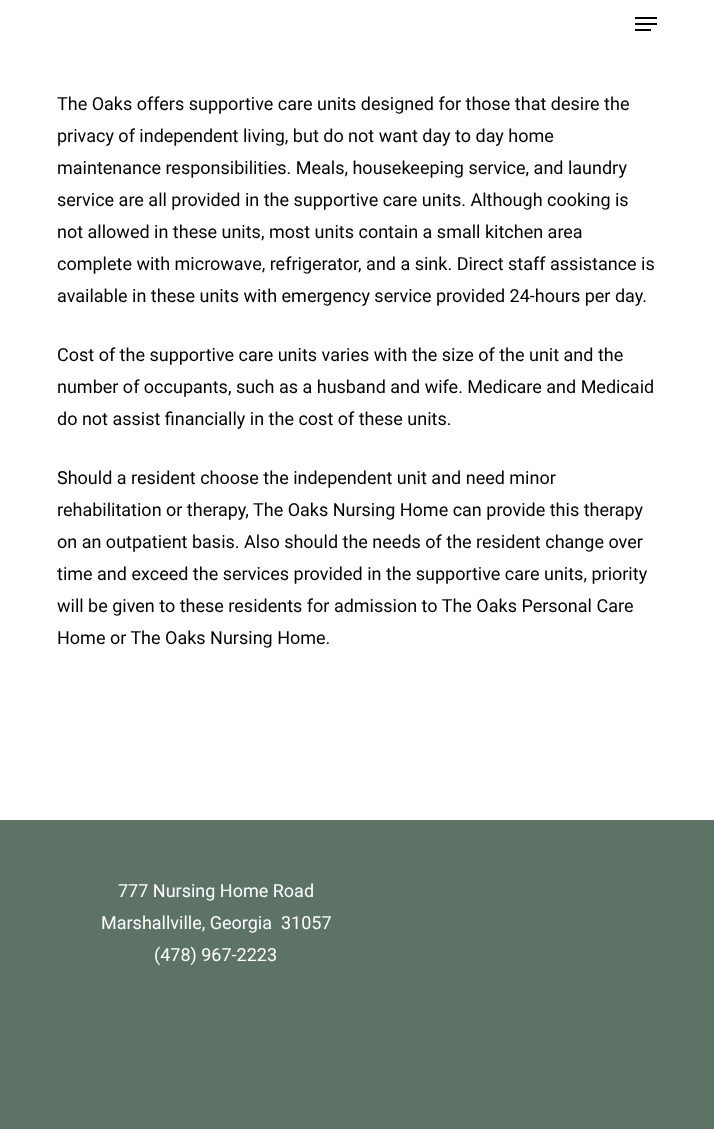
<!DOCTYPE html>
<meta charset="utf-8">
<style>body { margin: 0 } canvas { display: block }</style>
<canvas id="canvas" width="714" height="1129"></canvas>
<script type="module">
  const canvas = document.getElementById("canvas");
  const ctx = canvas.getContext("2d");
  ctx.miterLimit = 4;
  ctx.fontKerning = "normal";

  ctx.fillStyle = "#ffffff";
  ctx.fillRect(0, 0, 714, 1129);
  ctx.fillStyle = "#000000";
  ctx.fillRect(635, 17, 22, 2);
  ctx.fillRect(635, 29, 16, 2);
  ctx.fillRect(635, 23, 22, 2);
  ctx.font = "18px Roboto";
  ctx.fillText("The Oaks offers supportive care units designed for those that desire the", 57, 110);
  ctx.fillText("privacy of independent living, but do not want day to day home", 57, 142);
  ctx.fillText("maintenance responsibilities. Meals, housekeeping service, and laundry", 57, 174);
  ctx.fillText("service are all provided in the supportive care units. Although cooking is", 57, 206);
  ctx.fillText("not allowed in these units, most units contain a small kitchen area", 57, 238);
  ctx.fillText("complete with microwave, refrigerator, and a sink. Direct staff assistance is", 57, 270);
  ctx.fillText("available in these units with emergency service provided 24-hours per day.", 57, 302);
  ctx.fillText("Cost of the supportive care units varies with the size of the unit and the", 57, 361);
  ctx.fillText("number of occupants, such as a husband and wife. Medicare and Medicaid", 57, 393);
  ctx.fillText("do not assist financially in the cost of these units.", 57, 425);
  ctx.fillText("Should a resident choose the independent unit and need minor", 57, 484);
  ctx.fillText("rehabilitation or therapy, The Oaks Nursing Home can provide this therapy", 57, 516);
  ctx.fillText("on an outpatient basis. Also should the needs of the resident change over", 57, 548);
  ctx.fillText("time and exceed the services provided in the supportive care units, priority", 57, 580);
  ctx.fillText("will be given to these residents for admission to The Oaks Personal Care", 57, 612);
  ctx.fillText("Home or The Oaks Nursing Home.", 57, 644);
  ctx.fillStyle = "#5c7366";
  ctx.fillRect(0, 820, 714, 309);
  ctx.fillStyle = "#ffffff";
  ctx.fillText("777 Nursing Home Road", 118, 897);
  ctx.fillText("Marshallville, Georgia  31057", 101, 929);
  ctx.fillText("(478) 967-2223", 154, 961);
</script>
